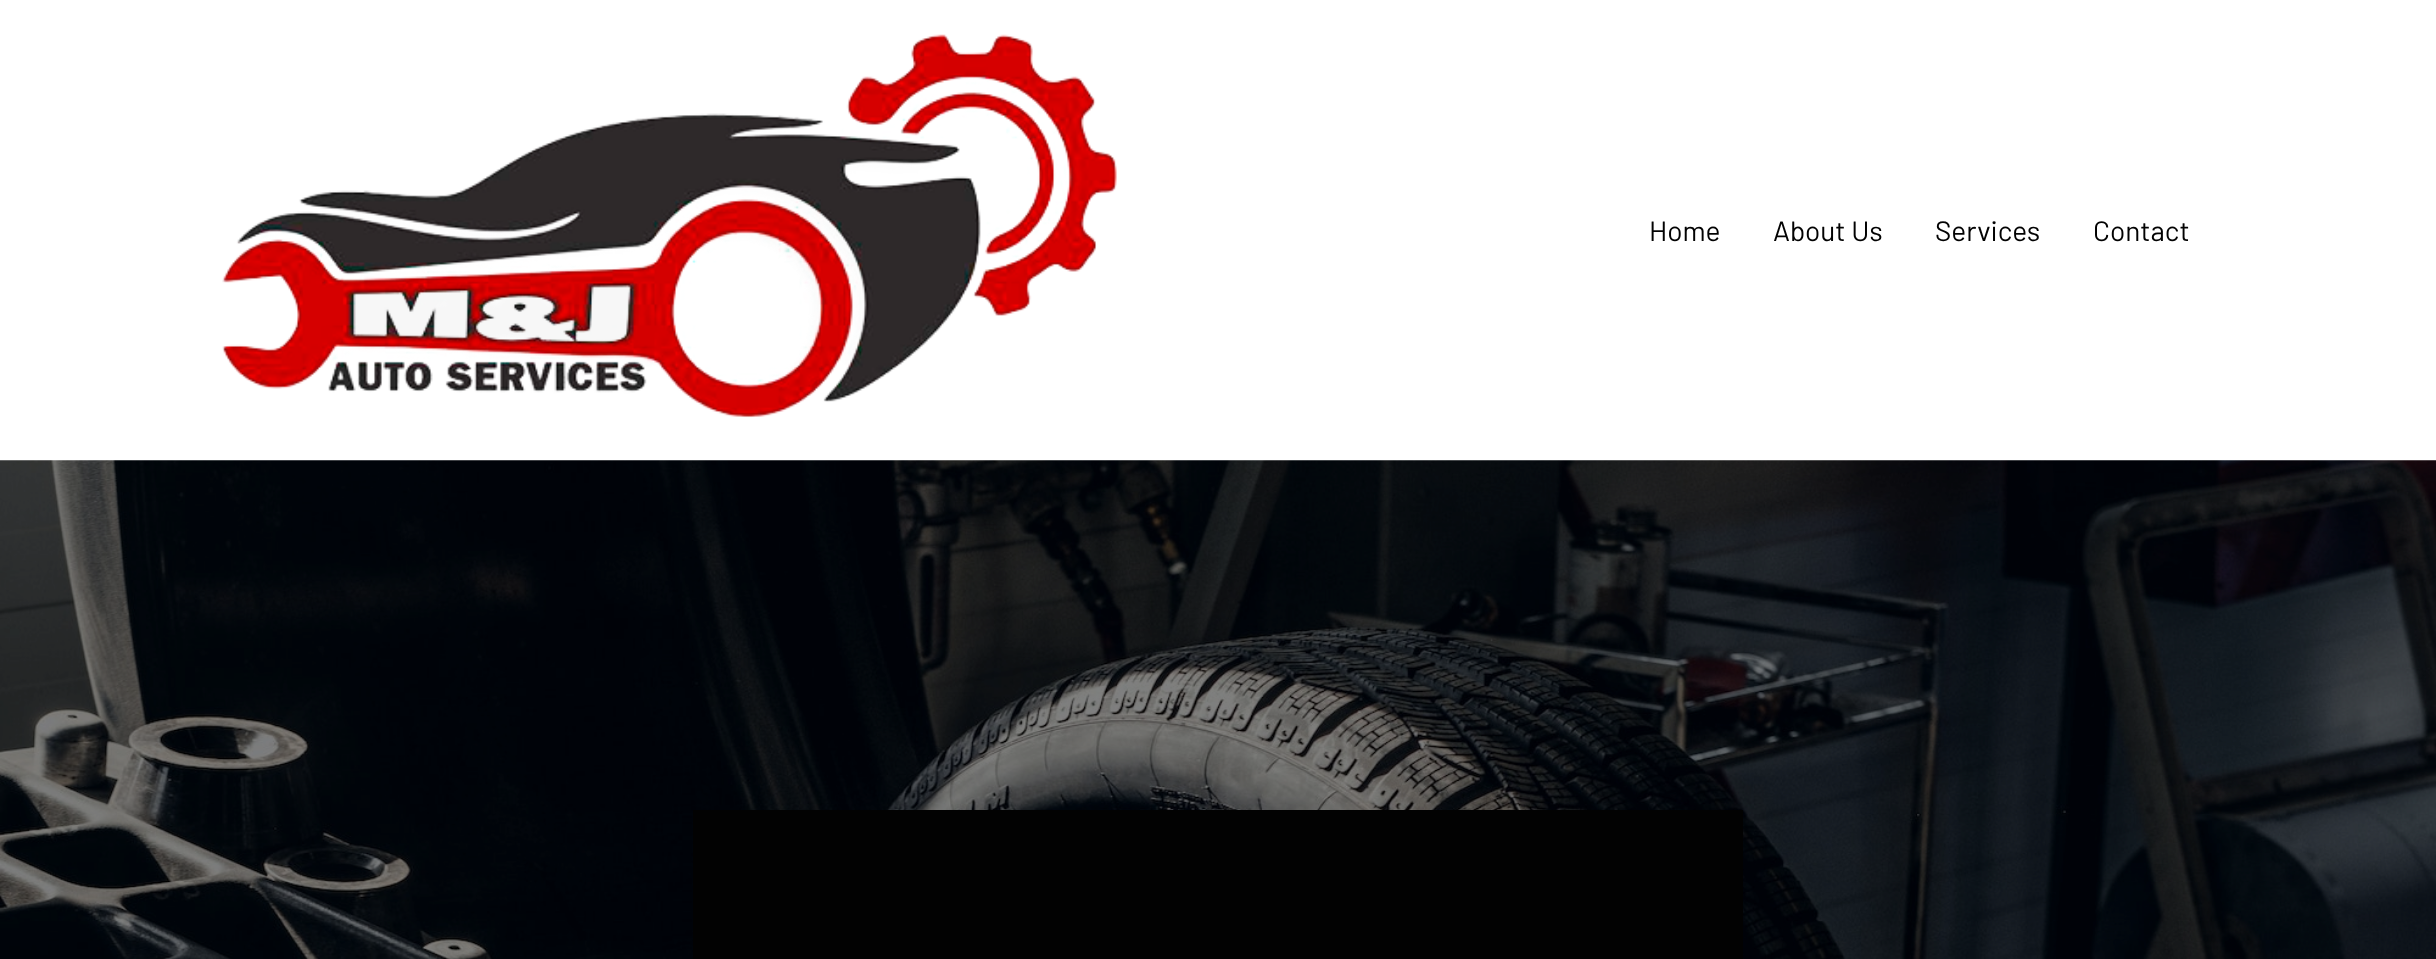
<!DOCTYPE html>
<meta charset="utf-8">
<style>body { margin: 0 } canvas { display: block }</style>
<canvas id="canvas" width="2436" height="959"></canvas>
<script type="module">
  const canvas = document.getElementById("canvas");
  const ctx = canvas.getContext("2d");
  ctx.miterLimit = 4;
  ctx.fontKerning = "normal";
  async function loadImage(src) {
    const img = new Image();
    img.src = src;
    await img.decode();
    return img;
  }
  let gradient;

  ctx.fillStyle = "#ffffff";
  ctx.fillRect(0, 0, 2436, 959);
  ctx.drawImage(await loadImage("img1.png"), 222, 34, 895, 384);
  ctx.font = "28px Barlow";
  ctx.fillStyle = "#020202";
  ctx.fillText("Home", 1649, 241);
  ctx.fillText("About Us", 1773, 241);
  ctx.fillText("Services", 1935, 241);
  ctx.fillText("Contact", 2093, 241);
  ctx.drawImage(await loadImage("img2.png"), 0, 460, 2436, 499);
  gradient = ctx.createLinearGradient(777, 740, 1659, 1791);
  gradient.addColorStop(0.9, "#020202");
  gradient.addColorStop(0.9, "#f03b3b");
  ctx.fillStyle = gradient;
  ctx.fillRect(693, 810, 1050, 149);
</script>
